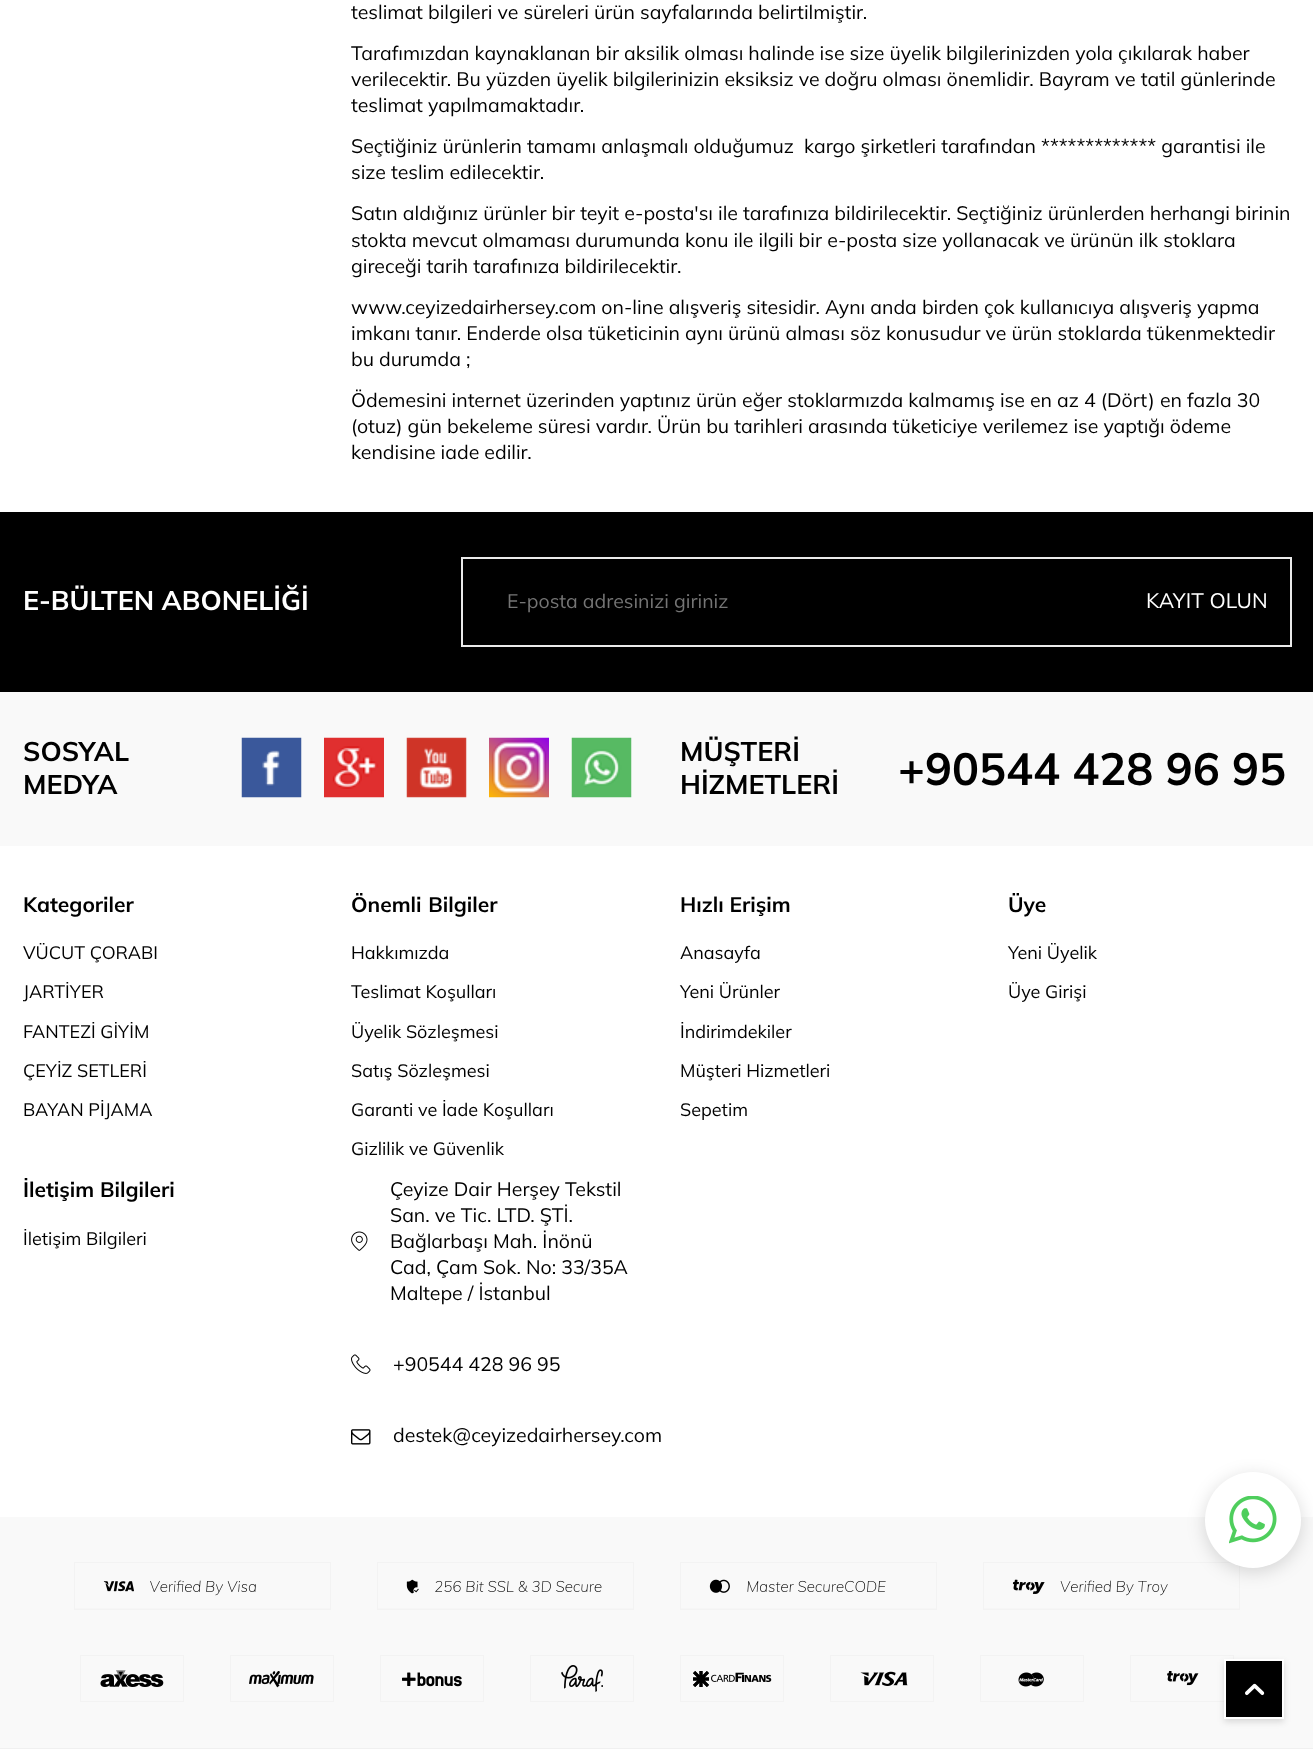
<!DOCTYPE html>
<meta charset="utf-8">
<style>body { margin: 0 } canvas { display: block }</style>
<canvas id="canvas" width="1313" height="1749"></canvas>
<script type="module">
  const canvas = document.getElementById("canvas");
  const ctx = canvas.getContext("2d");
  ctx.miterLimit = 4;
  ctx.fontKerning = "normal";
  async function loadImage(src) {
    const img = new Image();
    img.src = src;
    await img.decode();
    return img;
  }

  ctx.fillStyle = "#ffffff";
  ctx.fillRect(0, 0, 1313, 1749);
  ctx.font = "19.5px Mulish";
  ctx.fillStyle = "#000000";
  ctx.fillText("teslimat bilgileri ve süreleri ürün sayfalarında belirtilmiştir.", 351, 19);
  ctx.fillText("Tarafımızdan kaynaklanan bir aksilik olması halinde ise size üyelik bilgilerinizden yola çıkılarak haber", 351, 60);
  ctx.fillText("verilecektir. Bu yüzden üyelik bilgilerinizin eksiksiz ve doğru olması önemlidir. Bayram ve tatil günlerinde", 351, 86);
  ctx.fillText("teslimat yapılmamaktadır.", 351, 112);
  ctx.fillText("Seçtiğiniz ürünlerin tamamı anlaşmalı olduğumuz  kargo şirketleri tarafından ************* garantisi ile", 351, 153);
  ctx.fillText("size teslim edilecektir.", 351, 179);
  ctx.fillText("Satın aldığınız ürünler bir teyit e-posta'sı ile tarafınıza bildirilecektir. Seçtiğiniz ürünlerden herhangi birinin", 351, 220);
  ctx.fillText("stokta mevcut olmaması durumunda konu ile ilgili bir e-posta size yollanacak ve ürünün ilk stoklara", 351, 247);
  ctx.fillText("gireceği tarih tarafınıza bildirilecektir.", 351, 273);
  ctx.fillText("www.ceyizedairhersey.com on-line alışveriş sitesidir. Aynı anda birden çok kullanıcıya alışveriş yapma", 351, 314);
  ctx.fillText("imkanı tanır. Enderde olsa tüketicinin aynı ürünü alması söz konusudur ve ürün stoklarda tükenmektedir", 351, 340);
  ctx.fillText("bu durumda ;", 351, 366);
  ctx.fillText("Ödemesini internet üzerinden yaptınız ürün eğer stoklarmızda kalmamış ise en az 4 (Dört) en fazla 30", 351, 407);
  ctx.fillText("(otuz) gün bekeleme süresi vardır. Ürün bu tarihleri arasında tüketiciye verilemez ise yaptığı ödeme", 351, 433);
  ctx.fillText("kendisine iade edilir.", 351, 459);
  ctx.fillRect(0, 512, 1313, 180);
  ctx.font = "bold 27px Mulish";
  ctx.fillStyle = "#ffffff";
  ctx.fillText("E-BÜLTEN ABONELİĞİ", 23, 610);
  ctx.strokeStyle = "#eaeaea";
  ctx.lineWidth = 2;
  ctx.strokeRect(462, 558, 829, 88);
  ctx.font = "19.5px Mulish";
  ctx.fillStyle = "#757575";
  ctx.fillText("E-posta adresinizi giriniz", 507, 608);
  ctx.font = "21px Mulish";
  ctx.fillStyle = "#ffffff";
  ctx.fillText("KAYIT OLUN", 1146, 608);
  ctx.fillStyle = "#f9f9f9";
  ctx.fillRect(0, 692, 1313, 154);
  ctx.font = "bold 27px Mulish";
  ctx.fillStyle = "#000000";
  ctx.fillText("SOSYAL", 23, 761);
  ctx.fillText("MEDYA", 23, 794);
  ctx.drawImage(await loadImage("img1.png"), 241, 737, 61, 61);
  ctx.drawImage(await loadImage("img2.png"), 324, 737, 60, 61);
  ctx.drawImage(await loadImage("img3.png"), 406, 737, 61, 61);
  ctx.drawImage(await loadImage("img4.png"), 489, 737, 60, 61);
  ctx.drawImage(await loadImage("img5.png"), 571, 737, 61, 61);
  ctx.fillText("MÜŞTERİ", 680, 761);
  ctx.fillText("HİZMETLERİ", 680, 794);
  ctx.font = "bold 45px Mulish";
  ctx.fillText("+90544 428 96 95", 898, 785);
  ctx.font = "bold 21px Mulish";
  ctx.fillText("Kategoriler", 23, 912);
  ctx.font = "18px Mulish";
  ctx.fillText("VÜCUT ÇORABI", 23, 959);
  ctx.fillText("JARTİYER", 23, 998);
  ctx.fillText("FANTEZİ GİYİM", 23, 1038);
  ctx.fillText("ÇEYİZ SETLERİ", 23, 1077);
  ctx.fillText("BAYAN PİJAMA", 23, 1116);
  ctx.wordSpacing = "1px";
  ctx.font = "bold 21px Mulish";
  ctx.fillText("Önemli Bilgiler", 351, 912);
  ctx.wordSpacing = "0px";
  ctx.font = "18px Mulish";
  ctx.fillText("Hakkımızda", 351, 959);
  ctx.fillText("Teslimat Koşulları", 351, 998);
  ctx.fillText("Üyelik Sözleşmesi", 351, 1038);
  ctx.fillText("Satış Sözleşmesi", 351, 1077);
  ctx.fillText("Garanti ve İade Koşulları", 351, 1116);
  ctx.fillText("Gizlilik ve Güvenlik", 351, 1155);
  ctx.font = "bold 21px Mulish";
  ctx.fillText("Hızlı Erişim", 680, 912);
  ctx.font = "18px Mulish";
  ctx.fillText("Anasayfa", 680, 959);
  ctx.fillText("Yeni Ürünler", 680, 998);
  ctx.fillText("İndirimdekiler", 680, 1038);
  ctx.fillText("Müşteri Hizmetleri", 680, 1077);
  ctx.fillText("Sepetim", 680, 1116);
  ctx.font = "bold 21px Mulish";
  ctx.fillText("Üye", 1008, 912);
  ctx.font = "18px Mulish";
  ctx.fillText("Yeni Üyelik", 1008, 959);
  ctx.fillText("Üye Girişi", 1008, 998);
  ctx.font = "bold 21px Mulish";
  ctx.fillText("İletişim Bilgileri", 23, 1197);
  ctx.font = "18px Mulish";
  ctx.fillText("İletişim Bilgileri", 23, 1245);
  ctx.drawImage(await loadImage("img6.png"), 351, 1231, 17, 20);
  ctx.font = "19.5px Mulish";
  ctx.fillText("Çeyize Dair Herşey Tekstil", 390, 1196);
  ctx.fillText("San. ve Tic. LTD. ŞTİ.", 390, 1222);
  ctx.fillText("Bağlarbaşı Mah. İnönü", 390, 1248);
  ctx.fillText("Cad, Çam Sok. No: 33/35A", 390, 1274);
  ctx.fillText("Maltepe / İstanbul", 390, 1300);
  ctx.drawImage(await loadImage("img7.png"), 351, 1354, 20, 20);
  ctx.fillText("+90544 428 96 95", 393, 1371);
  ctx.drawImage(await loadImage("img8.png"), 351, 1429, 20, 16);
  ctx.fillText("destek@ceyizedairhersey.com", 393, 1442);
  ctx.fillStyle = "#f9f9f9";
  ctx.fillRect(0, 1517, 1313, 231);
  ctx.drawImage(await loadImage("img9.png"), 74, 1562, 257, 48);
  ctx.drawImage(await loadImage("img10.png"), 377, 1562, 257, 48);
  ctx.drawImage(await loadImage("img11.png"), 680, 1562, 257, 48);
  ctx.drawImage(await loadImage("img12.png"), 983, 1562, 257, 48);
  ctx.drawImage(await loadImage("img13.png"), 80, 1655, 104, 47);
  ctx.drawImage(await loadImage("img14.png"), 230, 1655, 104, 47);
  ctx.drawImage(await loadImage("img15.png"), 380, 1655, 104, 47);
  ctx.drawImage(await loadImage("img16.png"), 530, 1655, 104, 47);
  ctx.drawImage(await loadImage("img17.png"), 680, 1655, 104, 47);
  ctx.drawImage(await loadImage("img18.png"), 830, 1655, 104, 47);
  ctx.drawImage(await loadImage("img19.png"), 980, 1655, 104, 47);
  ctx.drawImage(await loadImage("img20.png"), 1130, 1655, 104, 47);
  ctx.fillStyle = "rgba(0, 0, 0, 0.15)";
  ctx.filter = "blur(9px)";
  ctx.beginPath();
  ctx.roundRect(1205, 1476, 96, 96, 48);
  ctx.fill();
  ctx.filter = "none";
  ctx.fillStyle = "#ffffff";
  ctx.beginPath();
  ctx.arc(1253, 1520, 48, 0, Math.PI * 2);
  ctx.fill();
  ctx.drawImage(await loadImage("img21.png"), 1229, 1496, 48, 48);
  ctx.fillStyle = "rgba(0, 0, 0, 0.13)";
  ctx.filter = "blur(3px)";
  ctx.beginPath();
  ctx.rect(1224, 1662, 60, 60);
  ctx.fill();
  ctx.filter = "none";
  ctx.fillStyle = "#000000";
  ctx.beginPath();
  ctx.rect(1225, 1660, 58, 58);
  ctx.fill();
  ctx.strokeStyle = "#ffffff";
  ctx.stroke();
  ctx.drawImage(await loadImage("img22.png"), 1245, 1683, 20, 13);
  ctx.fillStyle = "#f0f0f0";
  ctx.fillRect(0, 1748, 1313, 1);
</script>
